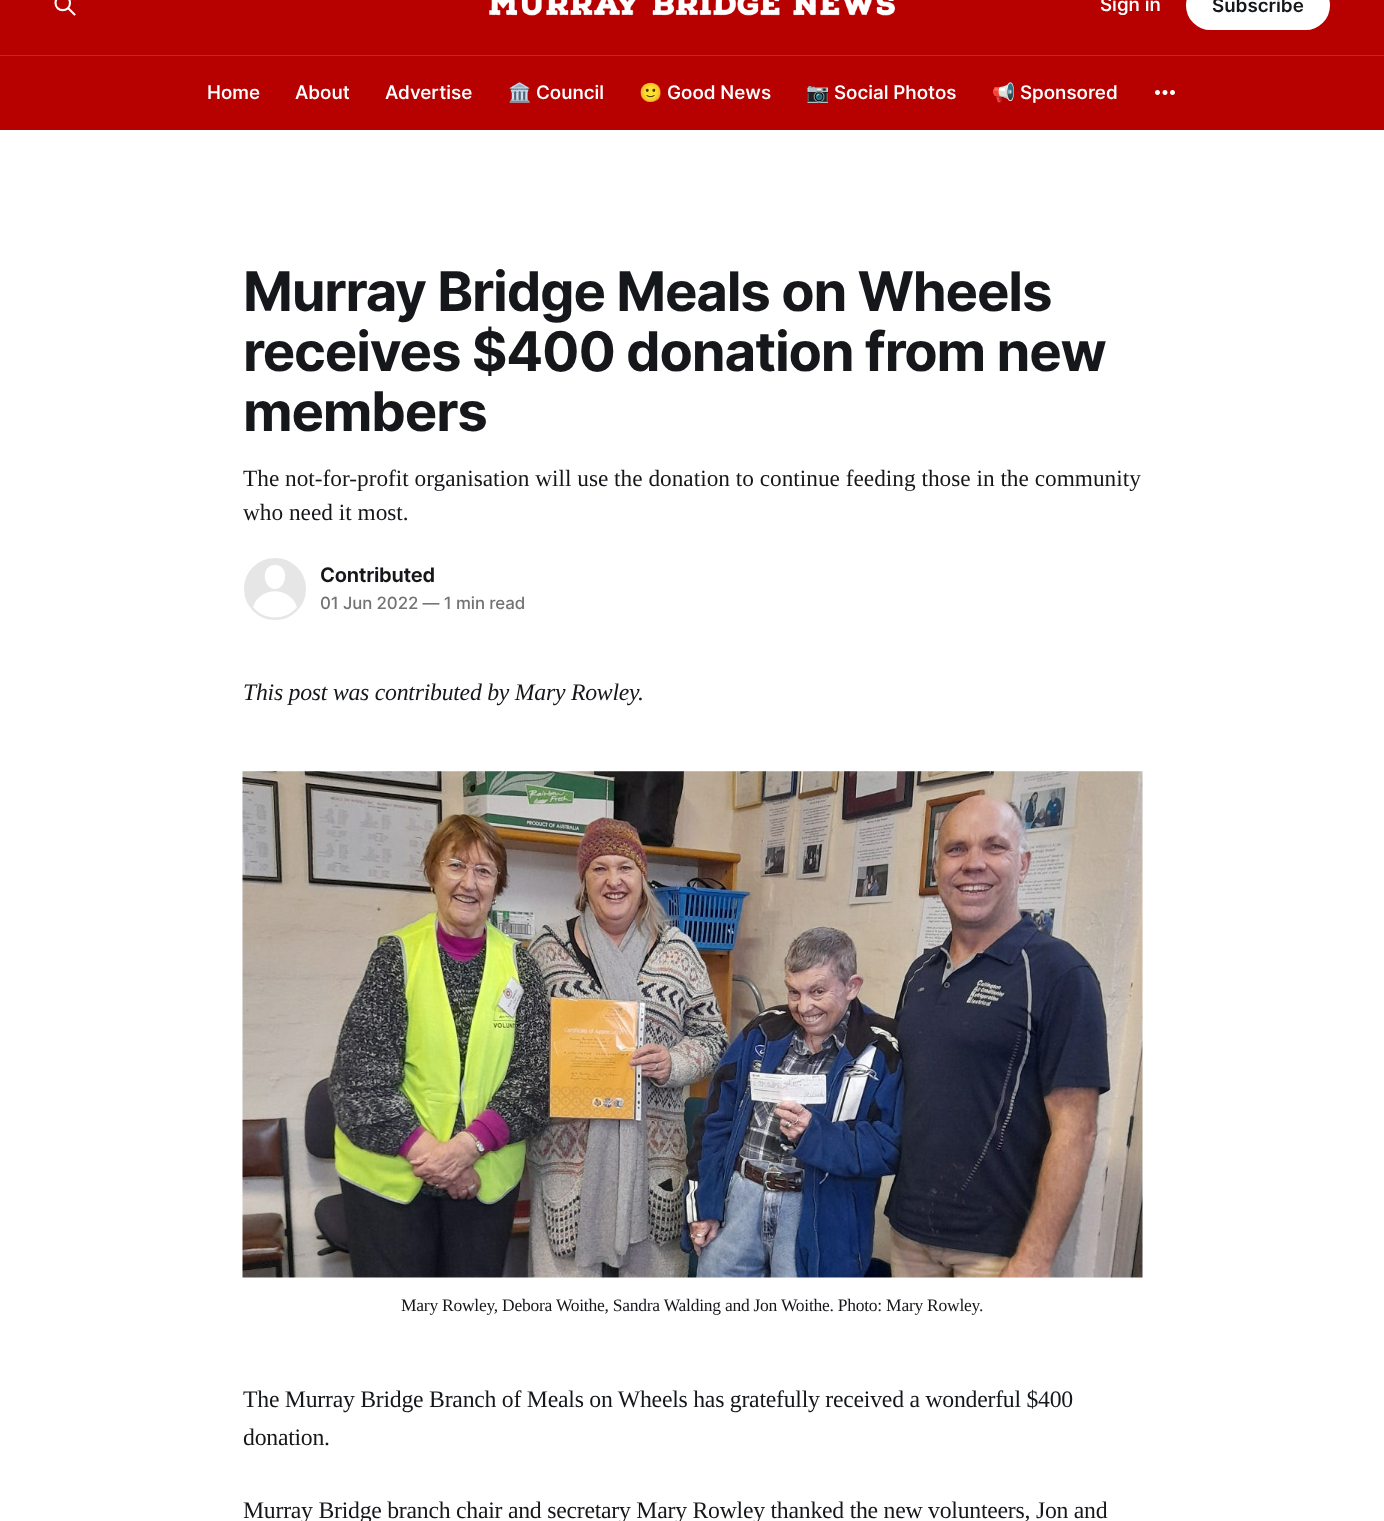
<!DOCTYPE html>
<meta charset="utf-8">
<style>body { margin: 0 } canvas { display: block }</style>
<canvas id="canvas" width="1384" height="1521"></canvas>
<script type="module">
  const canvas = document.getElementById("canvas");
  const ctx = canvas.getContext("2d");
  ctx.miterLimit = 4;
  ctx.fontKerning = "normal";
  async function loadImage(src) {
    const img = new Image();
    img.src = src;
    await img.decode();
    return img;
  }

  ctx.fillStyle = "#ffffff";
  ctx.fillRect(0, 0, 1384, 1521);
  ctx.fillStyle = "#b70000";
  ctx.fillRect(0, 0, 1384, 130);
  ctx.drawImage(await loadImage("img1.png"), 488, 0, 407, 16);
  ctx.beginPath();
  ctx.moveTo(74.5, 14.5);
  ctx.lineTo(68, 8);
  ctx.moveTo(70, 3);
  ctx.bezierCurveTo(70, 12.5, 55.5, 12.5, 55.5, 3);
  ctx.bezierCurveTo(55.5, -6.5, 70, -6.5, 70, 3);
  ctx.closePath();
  ctx.strokeStyle = "#ffffff";
  ctx.lineWidth = 2.1;
  ctx.lineCap = "round";
  ctx.lineJoin = "round";
  ctx.stroke();
  ctx.font = "500 18.75px 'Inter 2'";
  ctx.fillStyle = "#ffffff";
  ctx.fillText("Sign in", 1100, 11);
  ctx.beginPath();
  ctx.roundRect(1186, -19, 144, 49, 24.5);
  ctx.fill();
  ctx.font = "600 18.75px 'Inter 2'";
  ctx.fillStyle = "#15171a";
  ctx.fillText("Subscribe", 1212, 12);
  ctx.fillStyle = "#c22626";
  ctx.fillRect(0, 55, 1384, 1);
  ctx.font = "500 18.75px 'Inter 2'";
  ctx.fillStyle = "#ffffff";
  ctx.fillText("Home", 207, 99);
  ctx.fillText("About", 295, 99);
  ctx.fillText("Advertise", 385, 99);
  ctx.font = "18.75px Noto Color Emoji";
  ctx.fillText("🏛️", 508, 99);
  ctx.font = "500 18.75px 'Inter 2'";
  ctx.fillText("Council", 536, 99);
  ctx.font = "18.75px Noto Color Emoji";
  ctx.fillText("🙂", 639, 99);
  ctx.font = "500 18.75px 'Inter 2'";
  ctx.fillText("Good News", 667, 99);
  ctx.font = "18.75px Noto Color Emoji";
  ctx.fillText("📷", 806, 99);
  ctx.font = "500 18.75px 'Inter 2'";
  ctx.fillText("Social Photos", 834, 99);
  ctx.font = "18.75px Noto Color Emoji";
  ctx.fillText("📢", 992, 99);
  ctx.font = "500 18.75px 'Inter 2'";
  ctx.fillText("Sponsored", 1020, 99);
  ctx.drawImage(await loadImage("img2.png"), 1155, 90, 20, 5);
  ctx.letterSpacing = "-1.2px";
  ctx.font = "bold 54.5px Inter";
  ctx.fillStyle = "#15171a";
  ctx.fillText("Murray Bridge Meals on Wheels", 243, 311);
  ctx.fillText("receives $400 donation from new", 243, 371);
  ctx.fillText("members", 243, 431);
  ctx.letterSpacing = "0px";
  ctx.font = "23.3px Liberation Serif";
  ctx.fillText("The not-for-profit organisation will use the donation to continue feeding those in the community", 243, 486);
  ctx.fillText("who need it most.", 243, 520);
  ctx.fillStyle = "#e6e6e6";
  ctx.beginPath();
  ctx.arc(275, 589, 33, 0, Math.PI * 2);
  ctx.fill();
  ctx.lineWidth = 4;
  ctx.stroke();
  ctx.fillStyle = "#ffffff";
  ctx.beginPath();
  ctx.moveTo(253, 607);
  ctx.bezierCurveTo(260, 586, 290, 586, 297, 607);
  ctx.bezierCurveTo(286, 621, 264, 621, 253, 607);
  ctx.closePath();
  ctx.moveTo(275, 589);
  ctx.bezierCurveTo(287, 589, 290, 565, 275, 565);
  ctx.bezierCurveTo(260, 565, 263, 589, 275, 589);
  ctx.closePath();
  ctx.fill("evenodd");
  ctx.letterSpacing = "-0.25px";
  ctx.font = "600 20px Inter";
  ctx.fillStyle = "#15171a";
  ctx.fillText("Contributed", 320, 582);
  ctx.letterSpacing = "-0.1px";
  ctx.font = "500 16.9px Inter";
  ctx.fillStyle = "#737373";
  ctx.fillText("01 Jun 2022 — 1 min read", 320, 609);
  ctx.letterSpacing = "-0.25px";
  ctx.font = "italic 23.75px Liberation Serif";
  ctx.fillStyle = "#15171a";
  ctx.fillText("This post was contributed by Mary Rowley.", 243, 700);
  ctx.drawImage(await loadImage("img3.png"), 242, 771, 901, 507);
  ctx.font = "17.5px Liberation Serif";
  ctx.fillText("Mary Rowley, Debora Woithe, Sandra Walding and Jon Woithe. Photo: Mary Rowley.", 401, 1311);
  ctx.font = "23.75px Liberation Serif";
  ctx.fillText("The Murray Bridge Branch of Meals on Wheels has gratefully received a wonderful $400", 243, 1407);
  ctx.fillText("donation.", 243, 1445);
  ctx.fillText("Murray Bridge branch chair and secretary Mary Rowley thanked the new volunteers, Jon and", 243, 1518);
</script>
